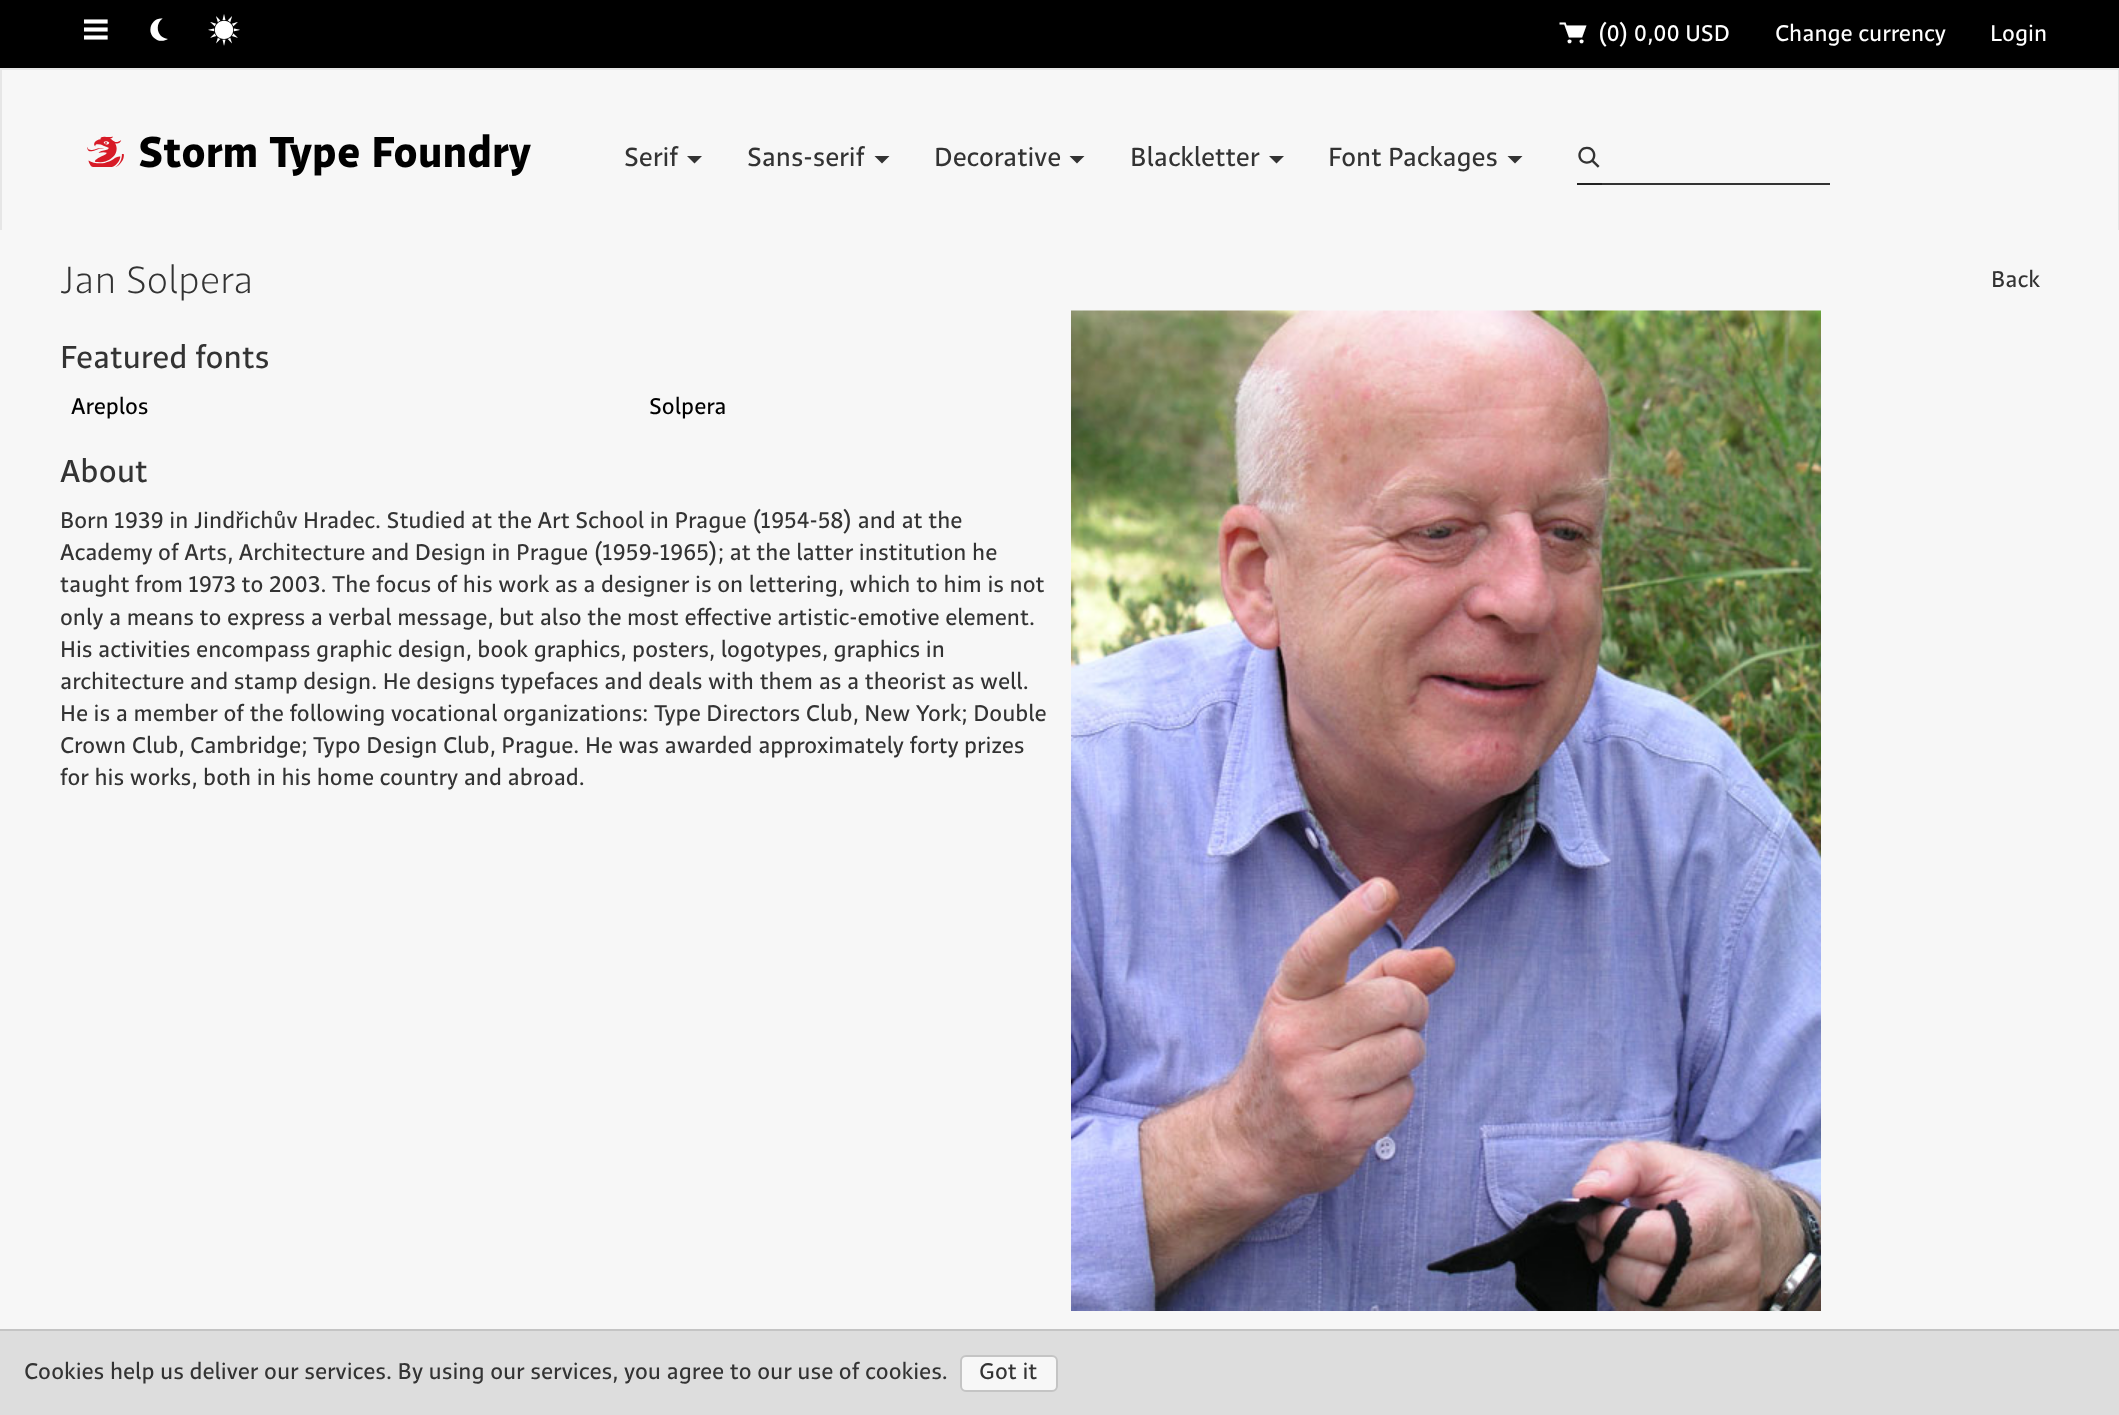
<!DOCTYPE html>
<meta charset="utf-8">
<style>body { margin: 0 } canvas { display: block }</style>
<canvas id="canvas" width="2119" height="1415"></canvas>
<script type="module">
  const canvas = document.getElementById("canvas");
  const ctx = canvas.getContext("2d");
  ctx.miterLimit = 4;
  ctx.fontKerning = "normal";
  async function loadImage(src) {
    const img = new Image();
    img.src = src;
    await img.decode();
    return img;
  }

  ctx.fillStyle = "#f7f7f7";
  ctx.fillRect(0, 0, 2119, 1415);
  ctx.fillStyle = "#000000";
  ctx.fillRect(0, 0, 2119, 68);
  ctx.font = "bold 40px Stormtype";
  ctx.fillStyle = "#ffffff";
  ctx.fillText("☰", 80, 44);
  ctx.font = "40px Stormtype";
  ctx.fillText("☾", 146, 44);
  ctx.fillText("☼", 204, 44);
  ctx.font = "29px Stormtype";
  ctx.fillText("🛒", 1561, 43);
  ctx.font = "22.5px Stormtype";
  ctx.fillText("(0) 0,00 USD", 1598, 41);
  ctx.fillText("Change currency", 1775, 41);
  ctx.fillText("Login", 1990, 41);
  ctx.fillStyle = "#e6e6e6";
  ctx.fillRect(0, 68, 2119, 2);
  ctx.fillRect(2118, 68, 1, 162);
  ctx.fillRect(0, 68, 2, 162);
  ctx.font = "42.75px Stormtype";
  ctx.fillStyle = "#d71b27";
  ctx.fillText("❓", 84, 167);
  ctx.font = "bold 42.75px 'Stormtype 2'";
  ctx.fillStyle = "#000000";
  ctx.fillText("Storm Type Foundry", 138, 167);
  ctx.font = "26px Stormtype";
  ctx.fillStyle = "#333333";
  ctx.fillText("Serif", 624, 166);
  ctx.beginPath();
  ctx.moveTo(687, 156);
  ctx.lineTo(702, 156);
  ctx.lineTo(694.5, 163.5);
  ctx.closePath();
  ctx.fill();
  ctx.fillText("Sans-serif", 747, 166);
  ctx.beginPath();
  ctx.moveTo(874.5, 156);
  ctx.lineTo(889.5, 156);
  ctx.lineTo(882, 163.5);
  ctx.closePath();
  ctx.fill();
  ctx.fillText("Decorative", 934, 166);
  ctx.beginPath();
  ctx.moveTo(1069.5, 156);
  ctx.lineTo(1084.5, 156);
  ctx.lineTo(1077, 163.5);
  ctx.closePath();
  ctx.fill();
  ctx.fillText("Blackletter", 1130, 166);
  ctx.beginPath();
  ctx.moveTo(1269, 156);
  ctx.lineTo(1284, 156);
  ctx.lineTo(1276.5, 163.5);
  ctx.closePath();
  ctx.fill();
  ctx.fillText("Font Packages", 1328, 166);
  ctx.beginPath();
  ctx.moveTo(1507.5, 156);
  ctx.lineTo(1522.5, 156);
  ctx.lineTo(1515, 163.5);
  ctx.closePath();
  ctx.fill();
  ctx.fillStyle = "#222222";
  ctx.fillRect(1575, 183, 29, 2);
  ctx.fillStyle = "#f7f7f7";
  ctx.fillRect(1575, 183, 2, 2);
  ctx.font = "30px Stormtype";
  ctx.fillStyle = "#333333";
  ctx.fillText("✤", 1576, 167);
  ctx.fillRect(1602, 183, 228, 2);
  ctx.font = "300 37.5px Stormtype";
  ctx.fillText("Jan Solpera", 60, 293);
  ctx.font = "22.5px Stormtype";
  ctx.fillText("Back", 1991, 287);
  ctx.font = "31.5px Stormtype";
  ctx.fillText("Featured fonts", 60, 368);
  ctx.font = "22.5px Stormtype";
  ctx.fillStyle = "#000000";
  ctx.fillText("Areplos", 71, 414);
  ctx.fillText("Solpera", 649, 414);
  ctx.font = "31.5px Stormtype";
  ctx.fillStyle = "#333333";
  ctx.fillText("About", 60, 482);
  ctx.font = "22.5px Stormtype";
  ctx.fillText("Born 1939 in Jindřichův Hradec. Studied at the Art School in Prague (1954-58) and at the", 60, 528);
  ctx.fillText("Academy of Arts, Architecture and Design in Prague (1959-1965); at the latter institution he", 60, 560);
  ctx.fillText("taught from 1973 to 2003. The focus of his work as a designer is on lettering, which to him is not", 60, 592);
  ctx.fillText("only a means to express a verbal message, but also the most effective artistic-emotive element.", 60, 625);
  ctx.fillText("His activities encompass graphic design, book graphics, posters, logotypes, graphics in", 60, 657);
  ctx.fillText("architecture and stamp design. He designs typefaces and deals with them as a theorist as well.", 60, 689);
  ctx.fillText("He is a member of the following vocational organizations: Type Directors Club, New York; Double", 60, 721);
  ctx.fillText("Crown Club, Cambridge; Typo Design Club, Prague. He was awarded approximately forty prizes", 60, 753);
  ctx.fillText("for his works, both in his home country and abroad.", 60, 785);
  ctx.drawImage(await loadImage("img1.png"), 1071, 310, 750, 1001);
  ctx.fillStyle = "#dddddd";
  ctx.fillRect(0, 1331, 2119, 84);
  ctx.fillStyle = "#c4c4c4";
  ctx.fillRect(0, 1329, 2119, 2);
  ctx.fillStyle = "#333333";
  ctx.fillText("Cookies help us deliver our services. By using our services, you agree to our use of cookies.", 24, 1379);
  ctx.fillStyle = "#f7f7f7";
  ctx.beginPath();
  ctx.roundRect(961, 1356, 96, 35, 5);
  ctx.fill();
  ctx.strokeStyle = "#c4c4c4";
  ctx.lineWidth = 2;
  ctx.stroke();
  ctx.fillStyle = "#333333";
  ctx.fillText("Got it", 979, 1379);
</script>
